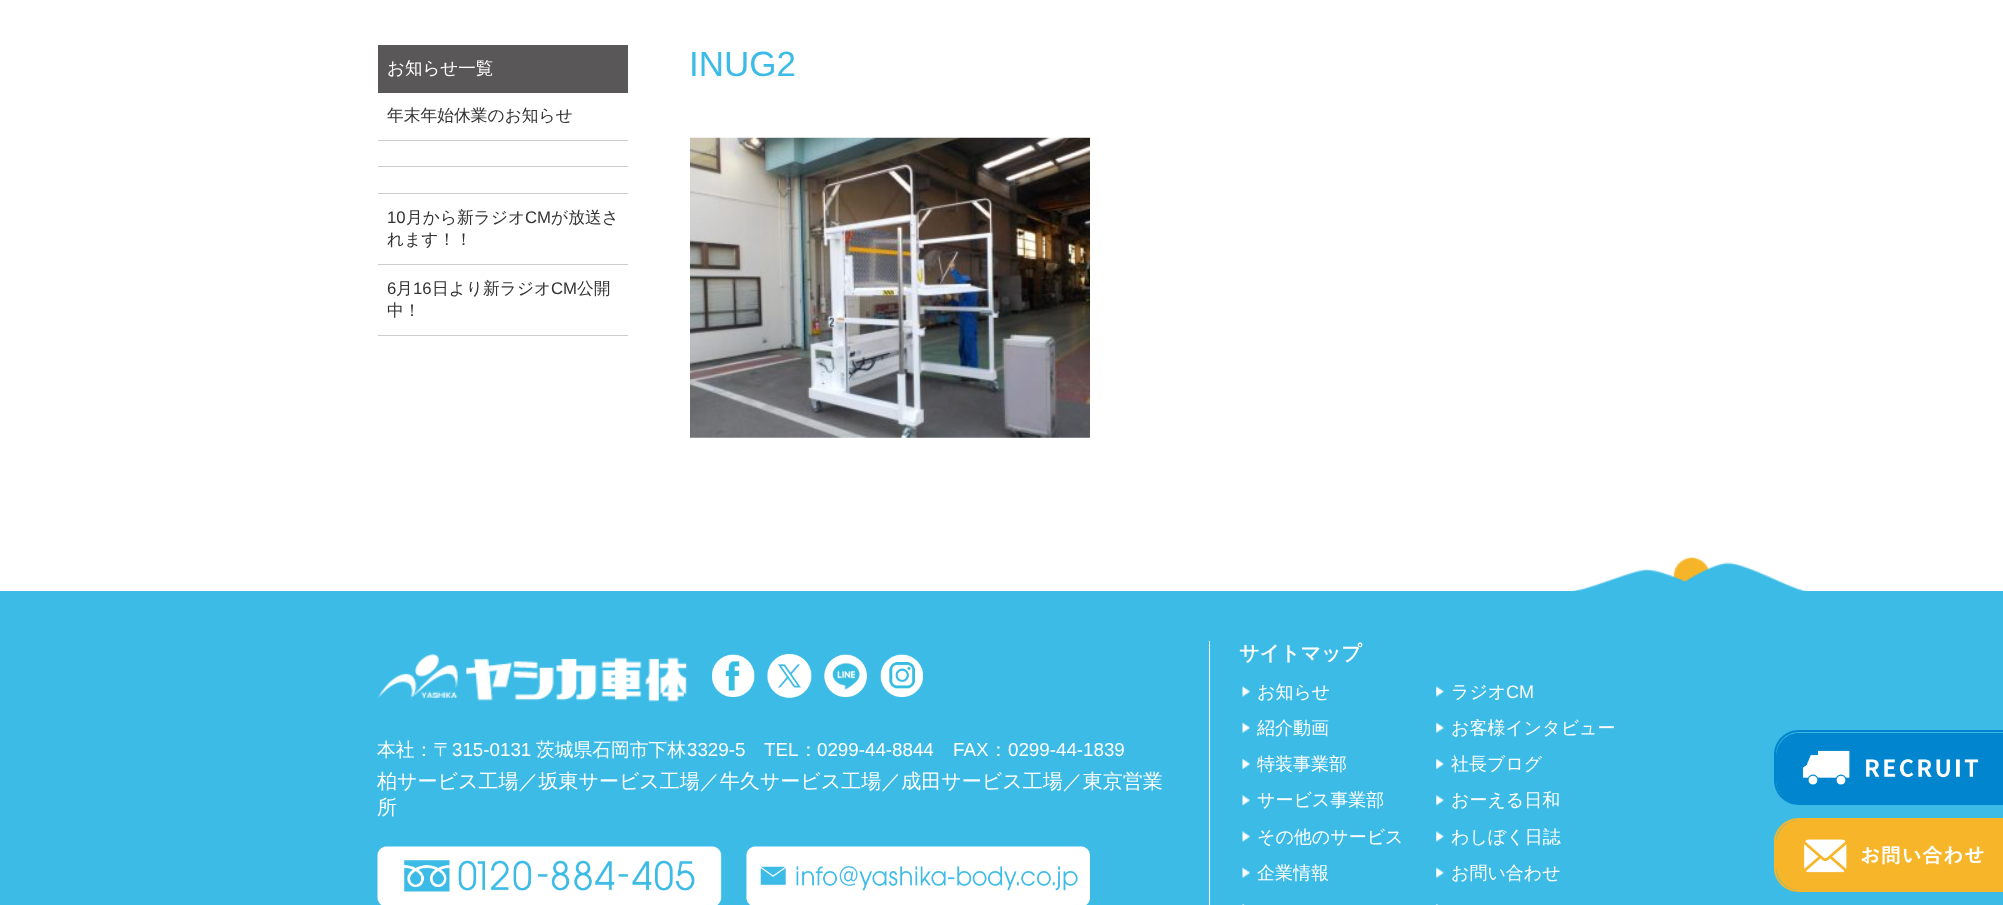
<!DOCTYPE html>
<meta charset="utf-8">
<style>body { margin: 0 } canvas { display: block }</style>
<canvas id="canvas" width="2003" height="905"></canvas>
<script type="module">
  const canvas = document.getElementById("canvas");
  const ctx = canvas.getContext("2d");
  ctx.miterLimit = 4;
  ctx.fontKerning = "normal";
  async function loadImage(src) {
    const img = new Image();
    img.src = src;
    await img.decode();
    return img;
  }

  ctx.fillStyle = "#ffffff";
  ctx.fillRect(0, 0, 2003, 905);
  ctx.drawImage(await loadImage("img1.png"), 1572, 557, 235, 34);
  ctx.fillStyle = "#595758";
  ctx.fillRect(378, 45, 250, 48);
  ctx.font = "500 17.5px WenQuanYi Zen Hei";
  ctx.fillStyle = "#ffffff";
  ctx.fillText("お知らせ一覧", 387, 74);
  ctx.fillStyle = "#cccccc";
  ctx.fillRect(378, 140, 250, 1);
  ctx.font = "500 16.75px WenQuanYi Zen Hei";
  ctx.fillStyle = "#333333";
  ctx.fillText("年末年始休業のお知らせ", 387, 121);
  ctx.fillStyle = "#cccccc";
  ctx.fillRect(378, 166, 250, 1);
  ctx.fillRect(378, 193, 250, 1);
  ctx.fillRect(378, 264, 250, 1);
  ctx.font = "16.75px Liberation Sans";
  ctx.fillStyle = "#333333";
  ctx.fillText("10", 387, 223);
  ctx.font = "500 16.75px WenQuanYi Zen Hei";
  ctx.fillText("月から新ラジオ", 406, 223);
  ctx.font = "16.75px Liberation Sans";
  ctx.fillText("CM", 525, 223);
  ctx.font = "500 16.75px WenQuanYi Zen Hei";
  ctx.fillText("が放送さ", 551, 223);
  ctx.fillText("れます！！", 387, 245);
  ctx.fillStyle = "#cccccc";
  ctx.fillRect(378, 335, 250, 1);
  ctx.font = "16.75px Liberation Sans";
  ctx.fillStyle = "#333333";
  ctx.fillText("6", 387, 294);
  ctx.font = "500 16.75px WenQuanYi Zen Hei";
  ctx.fillText("月", 396, 294);
  ctx.font = "16.75px Liberation Sans";
  ctx.fillText("16", 413, 294);
  ctx.font = "500 16.75px WenQuanYi Zen Hei";
  ctx.fillText("日より新ラジオ", 432, 294);
  ctx.font = "16.75px Liberation Sans";
  ctx.fillText("CM", 551, 294);
  ctx.font = "500 16.75px WenQuanYi Zen Hei";
  ctx.fillText("公開", 577, 294);
  ctx.fillText("中！", 387, 316);
  ctx.font = "35px Liberation Sans";
  ctx.fillStyle = "#3cbbe6";
  ctx.fillText("INUG2", 689, 76);
  ctx.drawImage(await loadImage("img2.png"), 690, 137, 400, 301);
  ctx.fillRect(0, 591, 2003, 314);
  ctx.fillStyle = "#0085ce";
  ctx.beginPath();
  ctx.moveTo(1799, 733);
  ctx.lineTo(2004, 733);
  ctx.lineTo(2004, 803);
  ctx.lineTo(1799, 803);
  ctx.bezierCurveTo(1786.5, 803, 1776, 792.5, 1776, 780);
  ctx.lineTo(1776, 756);
  ctx.bezierCurveTo(1776, 743.5, 1786.5, 733, 1799, 733);
  ctx.closePath();
  ctx.fill();
  ctx.beginPath();
  ctx.moveTo(1799, 730);
  ctx.lineTo(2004, 730);
  ctx.lineTo(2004, 805);
  ctx.lineTo(1799, 805);
  ctx.bezierCurveTo(1785, 805, 1774, 794, 1774, 780);
  ctx.lineTo(1774, 755);
  ctx.bezierCurveTo(1774, 741, 1785, 730, 1799, 730);
  ctx.closePath();
  ctx.moveTo(1799, 732);
  ctx.lineTo(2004, 732);
  ctx.lineTo(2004, 802);
  ctx.lineTo(1799, 802);
  ctx.bezierCurveTo(1786, 802, 1776, 792, 1776, 780);
  ctx.lineTo(1776, 755);
  ctx.bezierCurveTo(1776, 743, 1786, 732, 1799, 732);
  ctx.closePath();
  ctx.fill("evenodd");
  ctx.drawImage(await loadImage("img3.png"), 1802, 750, 177, 35);
  ctx.fillStyle = "#f7b529";
  ctx.beginPath();
  ctx.moveTo(1799, 820);
  ctx.lineTo(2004, 820);
  ctx.lineTo(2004, 890);
  ctx.lineTo(1799, 890);
  ctx.bezierCurveTo(1786.5, 890, 1776, 879.5, 1776, 867);
  ctx.lineTo(1776, 843);
  ctx.bezierCurveTo(1776, 830.5, 1786.5, 820, 1799, 820);
  ctx.closePath();
  ctx.fill();
  ctx.beginPath();
  ctx.moveTo(1799, 818);
  ctx.lineTo(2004, 818);
  ctx.lineTo(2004, 892);
  ctx.lineTo(1799, 892);
  ctx.bezierCurveTo(1785, 892, 1774, 881, 1774, 868);
  ctx.lineTo(1774, 842);
  ctx.bezierCurveTo(1774, 829, 1785, 818, 1799, 818);
  ctx.closePath();
  ctx.moveTo(1799, 820);
  ctx.lineTo(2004, 820);
  ctx.lineTo(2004, 890);
  ctx.lineTo(1799, 890);
  ctx.bezierCurveTo(1786, 890, 1776, 880, 1776, 868);
  ctx.lineTo(1776, 842);
  ctx.bezierCurveTo(1776, 830, 1786, 820, 1799, 820);
  ctx.closePath();
  ctx.fill("evenodd");
  ctx.drawImage(await loadImage("img4.png"), 1804, 839, 180, 34);
  ctx.drawImage(await loadImage("img5.png"), 377, 654, 310, 48);
  ctx.drawImage(await loadImage("img6.png"), 712, 654, 43, 43);
  ctx.drawImage(await loadImage("img7.png"), 767, 654, 45, 44);
  ctx.drawImage(await loadImage("img8.png"), 824, 654, 43, 43);
  ctx.drawImage(await loadImage("img9.png"), 880, 654, 43, 43);
  ctx.font = "500 18.75px WenQuanYi Zen Hei";
  ctx.fillStyle = "#ffffff";
  ctx.fillText("本社：〒", 377, 756);
  ctx.font = "18.75px Liberation Sans";
  ctx.fillText("315-0131", 452, 756);
  ctx.font = "500 18.75px WenQuanYi Zen Hei";
  ctx.fillText("茨城県石岡市下林", 536, 756);
  ctx.font = "18.75px Liberation Sans";
  ctx.fillText("3329-5", 687, 756);
  ctx.fillText("TEL", 764, 756);
  ctx.font = "500 18.75px WenQuanYi Zen Hei";
  ctx.fillText("：", 799, 756);
  ctx.font = "18.75px Liberation Sans";
  ctx.fillText("0299-44-8844", 817, 756);
  ctx.fillText("FAX", 953, 756);
  ctx.font = "500 18.75px WenQuanYi Zen Hei";
  ctx.fillText("：", 989, 756);
  ctx.font = "18.75px Liberation Sans";
  ctx.fillText("0299-44-1839", 1008, 756);
  ctx.font = "500 20px WenQuanYi Zen Hei";
  ctx.fillText("柏サービス工場／坂東サービス工場／牛久サービス工場／成田サービス工場／東京営業", 377, 788);
  ctx.fillText("所", 377, 814);
  ctx.drawImage(await loadImage("img10.png"), 377, 846, 345, 59);
  ctx.drawImage(await loadImage("img11.png"), 746, 846, 344, 59);
  ctx.fillRect(1209, 641, 1, 264);
  ctx.font = "bold 20px WenQuanYi Zen Hei";
  ctx.fillText("サイトマップ", 1239, 660);
  ctx.drawImage(await loadImage("img12.png"), 1242, 686, 8, 11);
  ctx.font = "500 18px WenQuanYi Zen Hei";
  ctx.fillText("お知らせ", 1257, 698);
  ctx.drawImage(await loadImage("img13.png"), 1242, 722, 8, 11);
  ctx.fillText("紹介動画", 1257, 734);
  ctx.drawImage(await loadImage("img14.png"), 1242, 759, 8, 10);
  ctx.fillText("特装事業部", 1257, 770);
  ctx.drawImage(await loadImage("img15.png"), 1242, 795, 8, 11);
  ctx.fillText("サービス事業部", 1257, 806);
  ctx.drawImage(await loadImage("img12.png"), 1242, 831, 8, 11);
  ctx.fillText("その他のサービス", 1257, 843);
  ctx.drawImage(await loadImage("img13.png"), 1242, 867, 8, 11);
  ctx.fillText("企業情報", 1257, 879);
  ctx.drawImage(await loadImage("img16.png"), 1242, 904, 3, 1);
  ctx.drawImage(await loadImage("img17.png"), 1436, 686, 8, 11);
  ctx.fillText("ラジオ", 1451, 698);
  ctx.font = "18px Liberation Sans";
  ctx.fillText("CM", 1506, 698);
  ctx.drawImage(await loadImage("img18.png"), 1436, 722, 8, 11);
  ctx.font = "500 18px WenQuanYi Zen Hei";
  ctx.fillText("お客様インタビュー", 1451, 734);
  ctx.drawImage(await loadImage("img19.png"), 1436, 759, 8, 10);
  ctx.fillText("社長ブログ", 1451, 770);
  ctx.drawImage(await loadImage("img20.png"), 1436, 795, 8, 11);
  ctx.fillText("おーえる日和", 1451, 806);
  ctx.drawImage(await loadImage("img17.png"), 1436, 831, 8, 11);
  ctx.fillText("わしぼく日誌", 1451, 843);
  ctx.drawImage(await loadImage("img18.png"), 1436, 867, 8, 11);
  ctx.fillText("お問い合わせ", 1451, 879);
  ctx.drawImage(await loadImage("img21.png"), 1436, 904, 3, 1);
</script>
